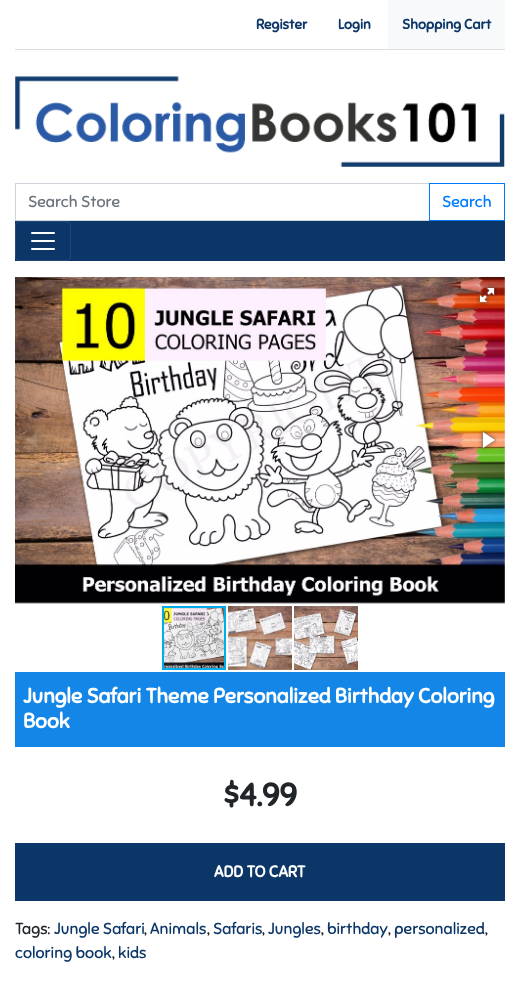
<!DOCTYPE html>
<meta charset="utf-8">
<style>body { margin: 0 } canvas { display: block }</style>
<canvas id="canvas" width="520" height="988"></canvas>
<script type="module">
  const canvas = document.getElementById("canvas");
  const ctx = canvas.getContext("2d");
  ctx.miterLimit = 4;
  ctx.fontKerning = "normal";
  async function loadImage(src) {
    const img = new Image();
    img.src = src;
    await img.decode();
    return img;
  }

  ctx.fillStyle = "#ffffff";
  ctx.fillRect(0, 0, 520, 988);
  ctx.fillStyle = "#dddddd";
  ctx.fillRect(15, 49, 490, 1);
  ctx.font = "bold 14px Sniglet";
  ctx.fillStyle = "#0b3667";
  ctx.fillText("Register", 256, 29);
  ctx.fillText("Login", 338, 29);
  ctx.fillStyle = "#f8f9fa";
  ctx.fillRect(388, 0, 117, 49);
  ctx.fillStyle = "#0b3667";
  ctx.fillText("Shopping Cart", 402, 29);
  ctx.drawImage(await loadImage("img1.png"), 15, 76, 490, 91);
  ctx.strokeStyle = "#ced4da";
  ctx.strokeRect(15.5, 183.5, 414, 37);
  ctx.font = "16px Sniglet";
  ctx.fillStyle = "#6c757d";
  ctx.fillText("Search Store", 28, 207);
  ctx.strokeStyle = "#007bff";
  ctx.strokeRect(429.5, 183.5, 75, 37);
  ctx.fillStyle = "#007bff";
  ctx.fillText("Search", 442, 207);
  ctx.fillStyle = "#0b3667";
  ctx.fillRect(15, 221, 490, 40);
  ctx.beginPath();
  ctx.roundRect(15.5, 221.5, 55, 39, 3.5);
  ctx.strokeStyle = "#234a76";
  ctx.stroke();
  ctx.drawImage(await loadImage("img2.png"), 31, 232, 24, 18);
  ctx.drawImage(await loadImage("img3.png"), 15, 277, 490, 327);
  ctx.drawImage(await loadImage("img4.png"), 476, 284, 22, 22);
  ctx.drawImage(await loadImage("img5.png"), 25, 432, 13, 16);
  ctx.drawImage(await loadImage("img6.png"), 478, 429, 20, 22);
  ctx.drawImage(await loadImage("img9.png"), 164, 608, 60, 60);
  ctx.strokeStyle = "#00afea";
  ctx.lineWidth = 2;
  ctx.strokeRect(163, 607, 62, 62);
  ctx.drawImage(await loadImage("img7.png"), 228, 606, 64, 64);
  ctx.drawImage(await loadImage("img8.png"), 294, 606, 64, 64);
  ctx.fillStyle = "#1386e7";
  ctx.fillRect(15, 672, 490, 75);
  ctx.font = "bold 20.8px Sniglet";
  ctx.fillStyle = "#ffffff";
  ctx.fillText("Jungle Safari Theme Personalized Birthday Coloring", 23, 703);
  ctx.fillText("Book", 23, 728);
  ctx.font = "bold 32px Sniglet";
  ctx.fillStyle = "#212529";
  ctx.fillText("$4.99", 223, 806);
  ctx.fillStyle = "#0b3667";
  ctx.fillRect(15, 843, 490, 58);
  ctx.font = "bold 16px Sniglet";
  ctx.fillStyle = "#ffffff";
  ctx.fillText("ADD TO CART", 214, 877);
  ctx.font = "16px Sniglet";
  ctx.fillStyle = "#212529";
  ctx.fillText("Tags:", 15, 934);
  ctx.fillStyle = "#0b3667";
  ctx.fillText("Jungle Safari", 54, 934);
  ctx.fillStyle = "#212529";
  ctx.fillText(",", 144, 934);
  ctx.fillStyle = "#0b3667";
  ctx.fillText("Animals", 150, 934);
  ctx.fillStyle = "#212529";
  ctx.fillText(",", 207, 934);
  ctx.fillStyle = "#0b3667";
  ctx.fillText("Safaris", 213, 934);
  ctx.fillStyle = "#212529";
  ctx.fillText(",", 262, 934);
  ctx.fillStyle = "#0b3667";
  ctx.fillText("Jungles", 268, 934);
  ctx.fillStyle = "#212529";
  ctx.fillText(",", 321, 934);
  ctx.fillStyle = "#0b3667";
  ctx.fillText("birthday", 327, 934);
  ctx.fillStyle = "#212529";
  ctx.fillText(",", 388, 934);
  ctx.fillStyle = "#0b3667";
  ctx.fillText("personalized", 394, 934);
  ctx.fillStyle = "#212529";
  ctx.fillText(",", 485, 934);
  ctx.fillStyle = "#0b3667";
  ctx.fillText("coloring book", 15, 958);
  ctx.fillStyle = "#212529";
  ctx.fillText(",", 112, 958);
  ctx.fillStyle = "#0b3667";
  ctx.fillText("kids", 118, 958);
</script>
